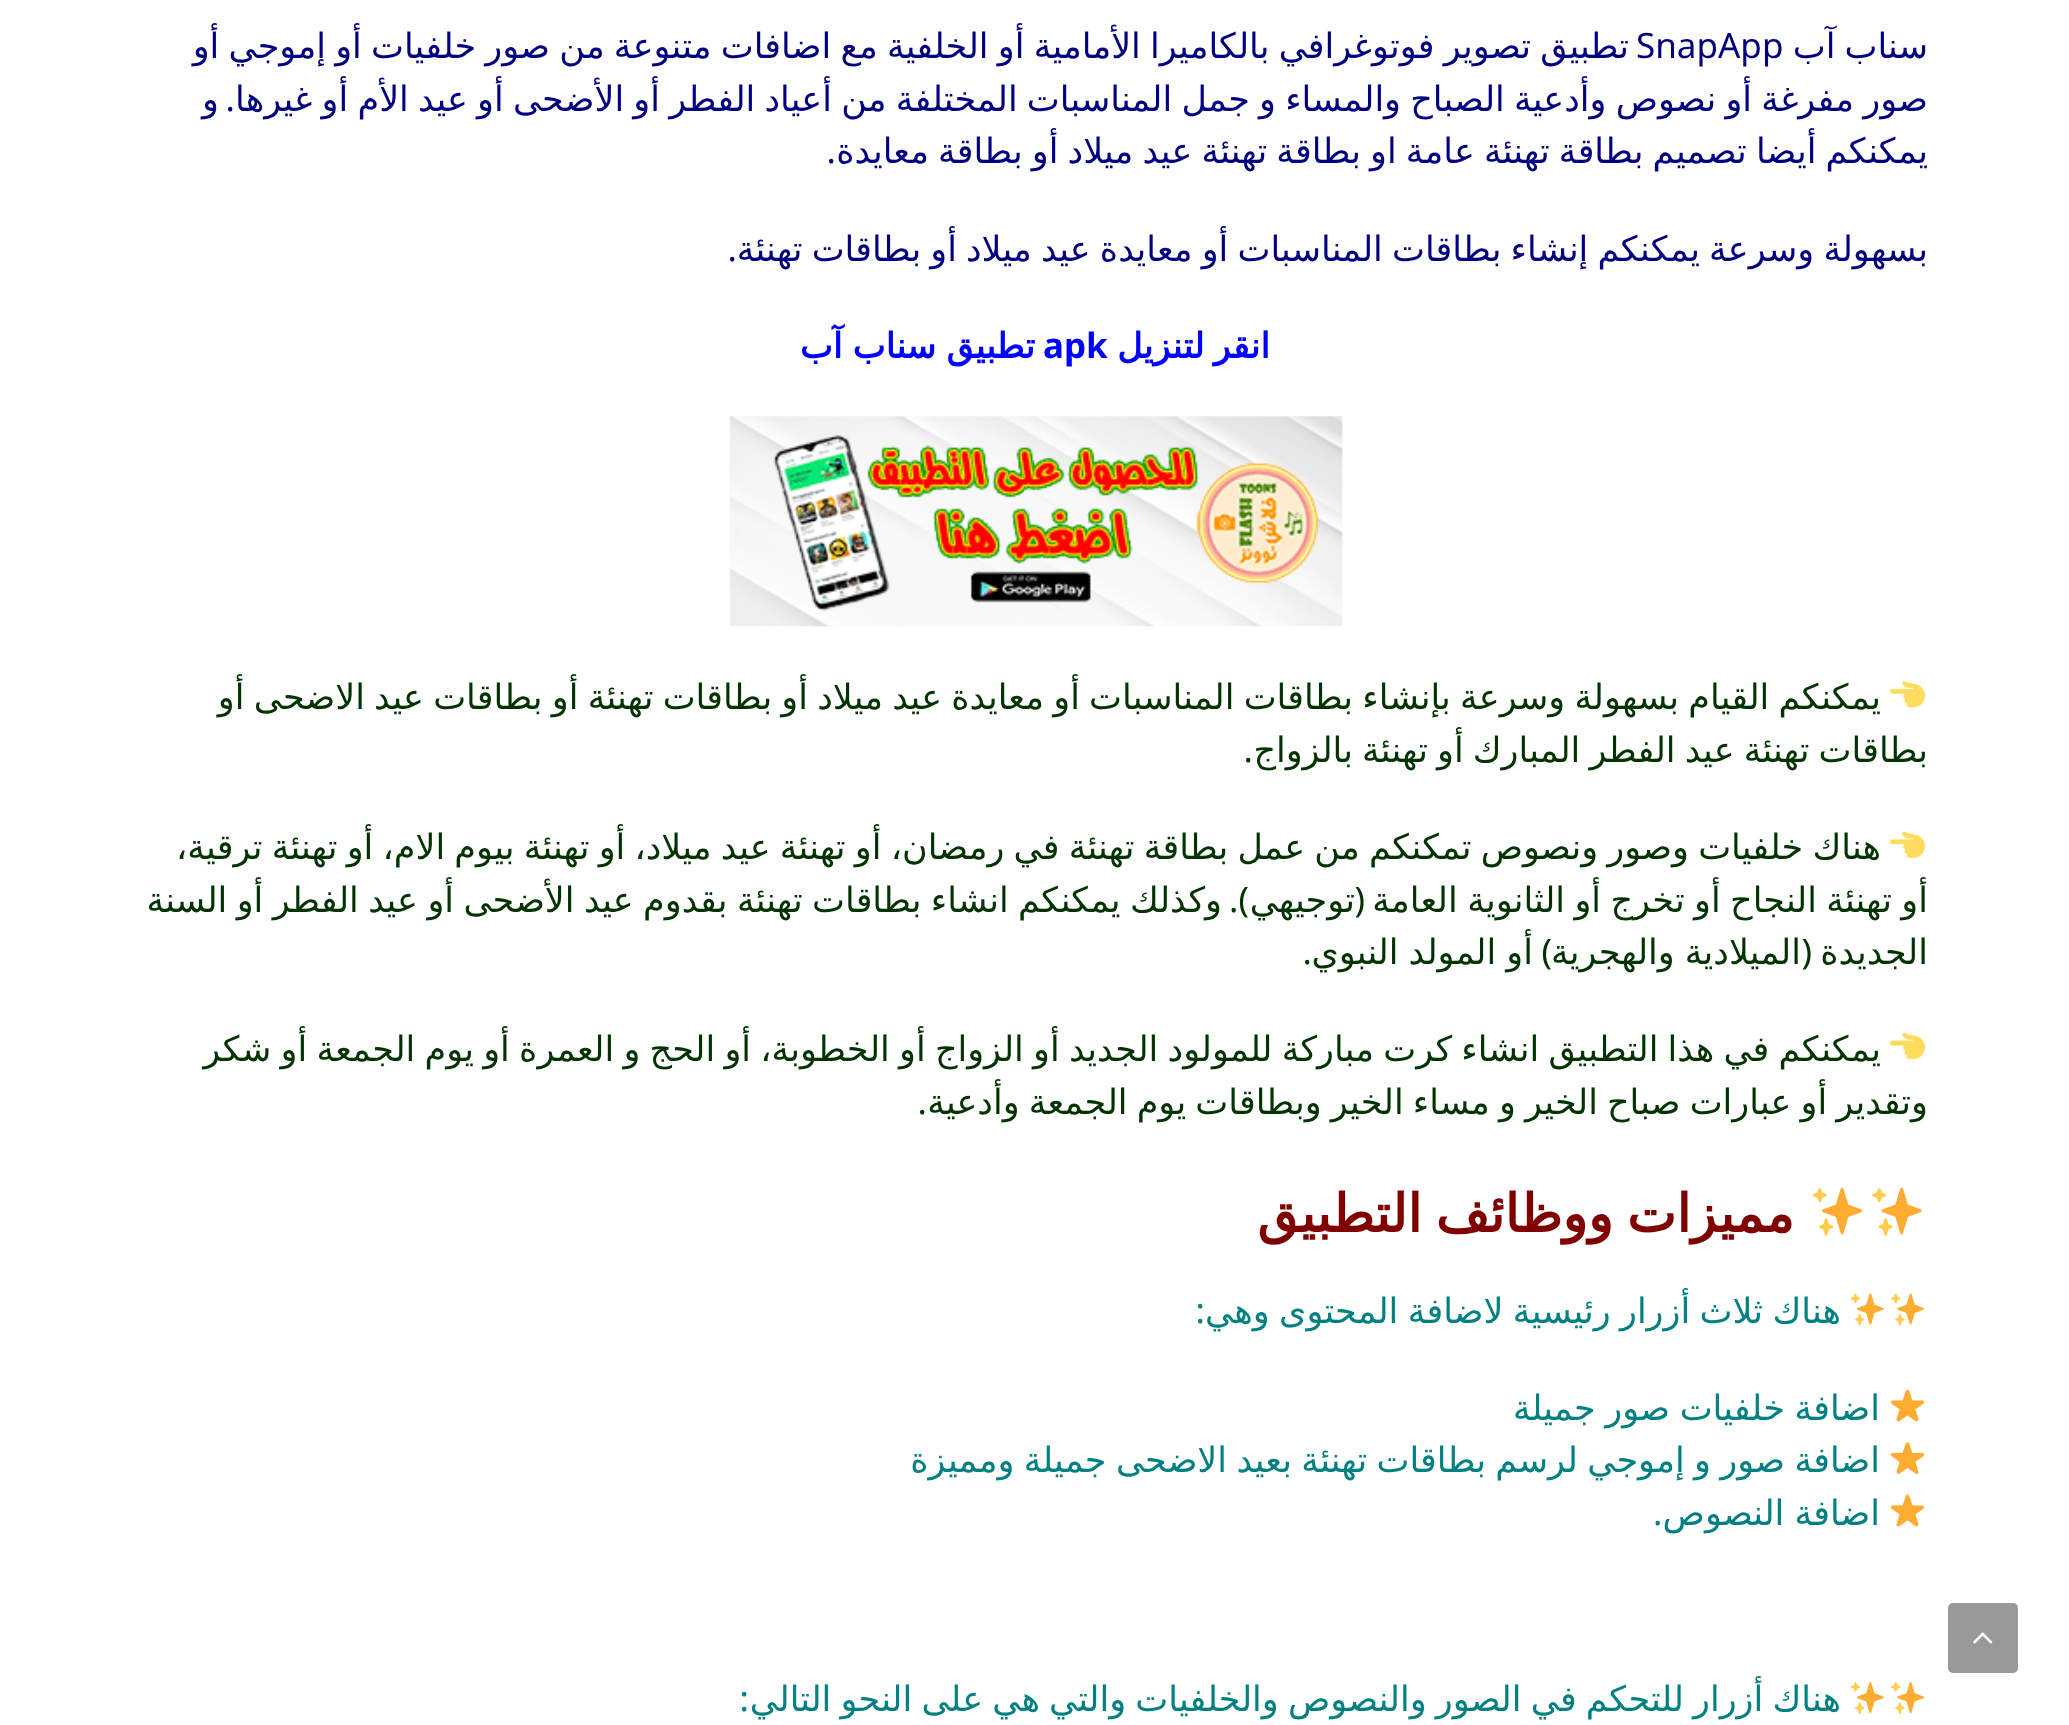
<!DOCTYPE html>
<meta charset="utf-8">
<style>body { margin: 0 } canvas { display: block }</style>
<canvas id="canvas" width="2069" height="1725"></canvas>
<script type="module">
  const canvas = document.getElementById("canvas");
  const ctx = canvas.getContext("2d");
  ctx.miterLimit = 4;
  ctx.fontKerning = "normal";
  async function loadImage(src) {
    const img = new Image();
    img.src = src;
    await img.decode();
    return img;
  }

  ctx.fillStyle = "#ffffff";
  ctx.fillRect(0, 0, 2069, 1725);
  ctx.fillStyle = "#999999";
  ctx.beginPath();
  ctx.roundRect(1948, 1603, 70, 70, 5);
  ctx.fill();
  ctx.drawImage(await loadImage("img1.png"), 1973, 1632, 20, 12);
  ctx.wordSpacing = "-2px";
  ctx.direction = "rtl";
  ctx.font = "35px DejaVu Sans";
  ctx.fillStyle = "#000080";
  ctx.fillText("سناب آب", 1928, 58);
  ctx.wordSpacing = "-1.9px";
  ctx.fillText("تطبيق تصوير فوتوغرافي بالكاميرا الأمامية أو الخلفية مع اضافات متنوعة من صور خلفيات أو إموجي أو", 1629, 58);
  ctx.wordSpacing = "0px";
  ctx.direction = "ltr";
  ctx.font = "35px Noto Sans";
  ctx.fillText("SnapApp", 1636, 58);
  ctx.wordSpacing = "-1.9px";
  ctx.direction = "rtl";
  ctx.font = "35px DejaVu Sans";
  ctx.fillText("صور مفرغة أو نصوص وأدعية الصباح والمساء و جمل المناسبات المختلفة من أعياد الفطر أو الأضحى أو عيد الأم أو غيرها", 1928, 111);
  ctx.wordSpacing = "0px";
  ctx.font = "35px Noto Sans";
  ctx.fillText(".", 235, 111);
  ctx.font = "35px DejaVu Sans";
  ctx.fillText("و", 219, 111);
  ctx.wordSpacing = "-2px";
  ctx.fillText("يمكنكم أيضا تصميم بطاقة تهنئة عامة او بطاقة تهنئة عيد ميلاد أو بطاقة معايدة", 1928, 163);
  ctx.wordSpacing = "0px";
  ctx.font = "35px Noto Sans";
  ctx.fillText(".", 836, 163);
  ctx.wordSpacing = "-2px";
  ctx.font = "35px DejaVu Sans";
  ctx.fillText("بسهولة وسرعة يمكنكم إنشاء بطاقات المناسبات أو معايدة عيد ميلاد أو بطاقات تهنئة", 1928, 261);
  ctx.wordSpacing = "0px";
  ctx.font = "35px Noto Sans";
  ctx.fillText(".", 737, 261);
  ctx.wordSpacing = "-2px";
  ctx.font = "bold 35px DejaVu Sans";
  ctx.fillStyle = "#0000ff";
  ctx.fillText("انقر لتنزيل", 1270, 358);
  ctx.wordSpacing = "0px";
  ctx.direction = "ltr";
  ctx.font = "bold 35px Noto Sans";
  ctx.fillText("apk", 1043, 358);
  ctx.wordSpacing = "-1px";
  ctx.direction = "rtl";
  ctx.font = "bold 35px DejaVu Sans";
  ctx.fillText("تطبيق سناب آب", 1035, 358);
  ctx.drawImage(await loadImage("img2.png"), 729, 416, 614, 211);
  ctx.drawImage(await loadImage("img3.png"), 1890, 681, 35, 27);
  ctx.wordSpacing = "-1.9px";
  ctx.font = "35px DejaVu Sans";
  ctx.fillStyle = "#003300";
  ctx.fillText("يمكنكم القيام بسهولة وسرعة بإنشاء بطاقات المناسبات أو معايدة عيد ميلاد أو بطاقات تهنئة أو بطاقات عيد الاضحى أو", 1881, 709);
  ctx.wordSpacing = "-2px";
  ctx.fillText("بطاقات تهنئة عيد الفطر المبارك أو تهنئة بالزواج", 1928, 762);
  ctx.wordSpacing = "0px";
  ctx.font = "35px Noto Sans";
  ctx.fillText(".", 1253, 762);
  ctx.drawImage(await loadImage("img4.png"), 1890, 831, 35, 27);
  ctx.wordSpacing = "-1.9px";
  ctx.font = "35px DejaVu Sans";
  ctx.fillText("هناك خلفيات وصور ونصوص تمكنكم من عمل بطاقة تهنئة في رمضان، أو تهنئة عيد ميلاد، أو تهنئة بيوم الام، أو تهنئة ترقية،", 1881, 859);
  ctx.wordSpacing = "-1.75px";
  ctx.fillText("أو تهنئة النجاح أو تخرج أو الثانوية العامة", 1928, 912);
  ctx.wordSpacing = "0px";
  ctx.font = "35px Noto Sans";
  ctx.fillText("(", 1365, 912);
  ctx.font = "35px DejaVu Sans";
  ctx.fillText("توجيهي", 1355, 912);
  ctx.wordSpacing = "-1.75px";
  ctx.fillText("وكذلك يمكنكم انشاء بطاقات تهنئة بقدوم عيد الأضحى أو عيد الفطر أو السنة", 1222, 912);
  ctx.wordSpacing = "0px";
  ctx.font = "35px Noto Sans";
  ctx.fillText(").", 1249, 912);
  ctx.font = "35px DejaVu Sans";
  ctx.fillText("الجديدة", 1928, 964);
  ctx.font = "35px Noto Sans";
  ctx.fillText("(", 1812, 964);
  ctx.wordSpacing = "-1px";
  ctx.font = "35px DejaVu Sans";
  ctx.fillText("الميلادية والهجرية", 1801, 964);
  ctx.wordSpacing = "0px";
  ctx.font = "35px Noto Sans";
  ctx.fillText(")", 1552, 964);
  ctx.wordSpacing = "-1px";
  ctx.font = "35px DejaVu Sans";
  ctx.fillText("أو المولد النبوي", 1533, 964);
  ctx.wordSpacing = "0px";
  ctx.font = "35px Noto Sans";
  ctx.fillText(".", 1312, 964);
  ctx.drawImage(await loadImage("img5.png"), 1890, 1032, 35, 28);
  ctx.wordSpacing = "-1.9px";
  ctx.font = "35px DejaVu Sans";
  ctx.fillText("يمكنكم في هذا التطبيق انشاء كرت مباركة للمولود الجديد أو الزواج أو الخطوبة، أو الحج و العمرة أو يوم الجمعة أو شكر", 1881, 1061);
  ctx.wordSpacing = "-2px";
  ctx.fillText("وتقدير أو عبارات صباح الخير و مساء الخير وبطاقات يوم الجمعة وأدعية", 1928, 1114);
  ctx.wordSpacing = "0px";
  ctx.font = "35px Noto Sans";
  ctx.fillText(".", 927, 1114);
  ctx.drawImage(await loadImage("img6.png"), 1872, 1187, 50, 49);
  ctx.drawImage(await loadImage("img7.png"), 1812, 1187, 51, 49);
  ctx.wordSpacing = "-3px";
  ctx.font = "bold 52.5px DejaVu Sans";
  ctx.fillStyle = "#800000";
  ctx.fillText("مميزات ووظائف التطبيق", 1794, 1232);
  ctx.drawImage(await loadImage("img8.png"), 1891, 1293, 33, 33);
  ctx.drawImage(await loadImage("img9.png"), 1850, 1293, 34, 33);
  ctx.wordSpacing = "-1.75px";
  ctx.font = "35px DejaVu Sans";
  ctx.fillStyle = "#008080";
  ctx.fillText("هناك ثلاث أزرار رئيسية لاضافة المحتوى وهي", 1841, 1323);
  ctx.wordSpacing = "0px";
  ctx.font = "35px Noto Sans";
  ctx.fillText(":", 1205, 1323);
  ctx.drawImage(await loadImage("img10.png"), 1891, 1389, 33, 33);
  ctx.wordSpacing = "-1.5px";
  ctx.font = "35px DejaVu Sans";
  ctx.fillText("اضافة خلفيات صور جميلة", 1880, 1420);
  ctx.drawImage(await loadImage("img11.png"), 1891, 1442, 33, 32);
  ctx.wordSpacing = "-1.75px";
  ctx.fillText("اضافة صور و إموجي لرسم بطاقات تهنئة بعيد الاضحى جميلة ومميزة", 1880, 1472);
  ctx.drawImage(await loadImage("img10.png"), 1891, 1494, 33, 33);
  ctx.wordSpacing = "-1px";
  ctx.fillText("اضافة النصوص", 1880, 1525);
  ctx.wordSpacing = "0px";
  ctx.direction = "ltr";
  ctx.font = "35px Noto Sans";
  ctx.fillText(".", 1653, 1525);
  ctx.drawImage(await loadImage("img12.png"), 1891, 1682, 33, 32);
  ctx.drawImage(await loadImage("img13.png"), 1850, 1682, 34, 32);
  ctx.wordSpacing = "-1.9px";
  ctx.direction = "rtl";
  ctx.font = "35px DejaVu Sans";
  ctx.fillText("هناك أزرار للتحكم في الصور والنصوص والخلفيات والتي هي على النحو التالي", 1841, 1711);
  ctx.wordSpacing = "0px";
  ctx.font = "35px Noto Sans";
  ctx.fillText(":", 749, 1711);
</script>
